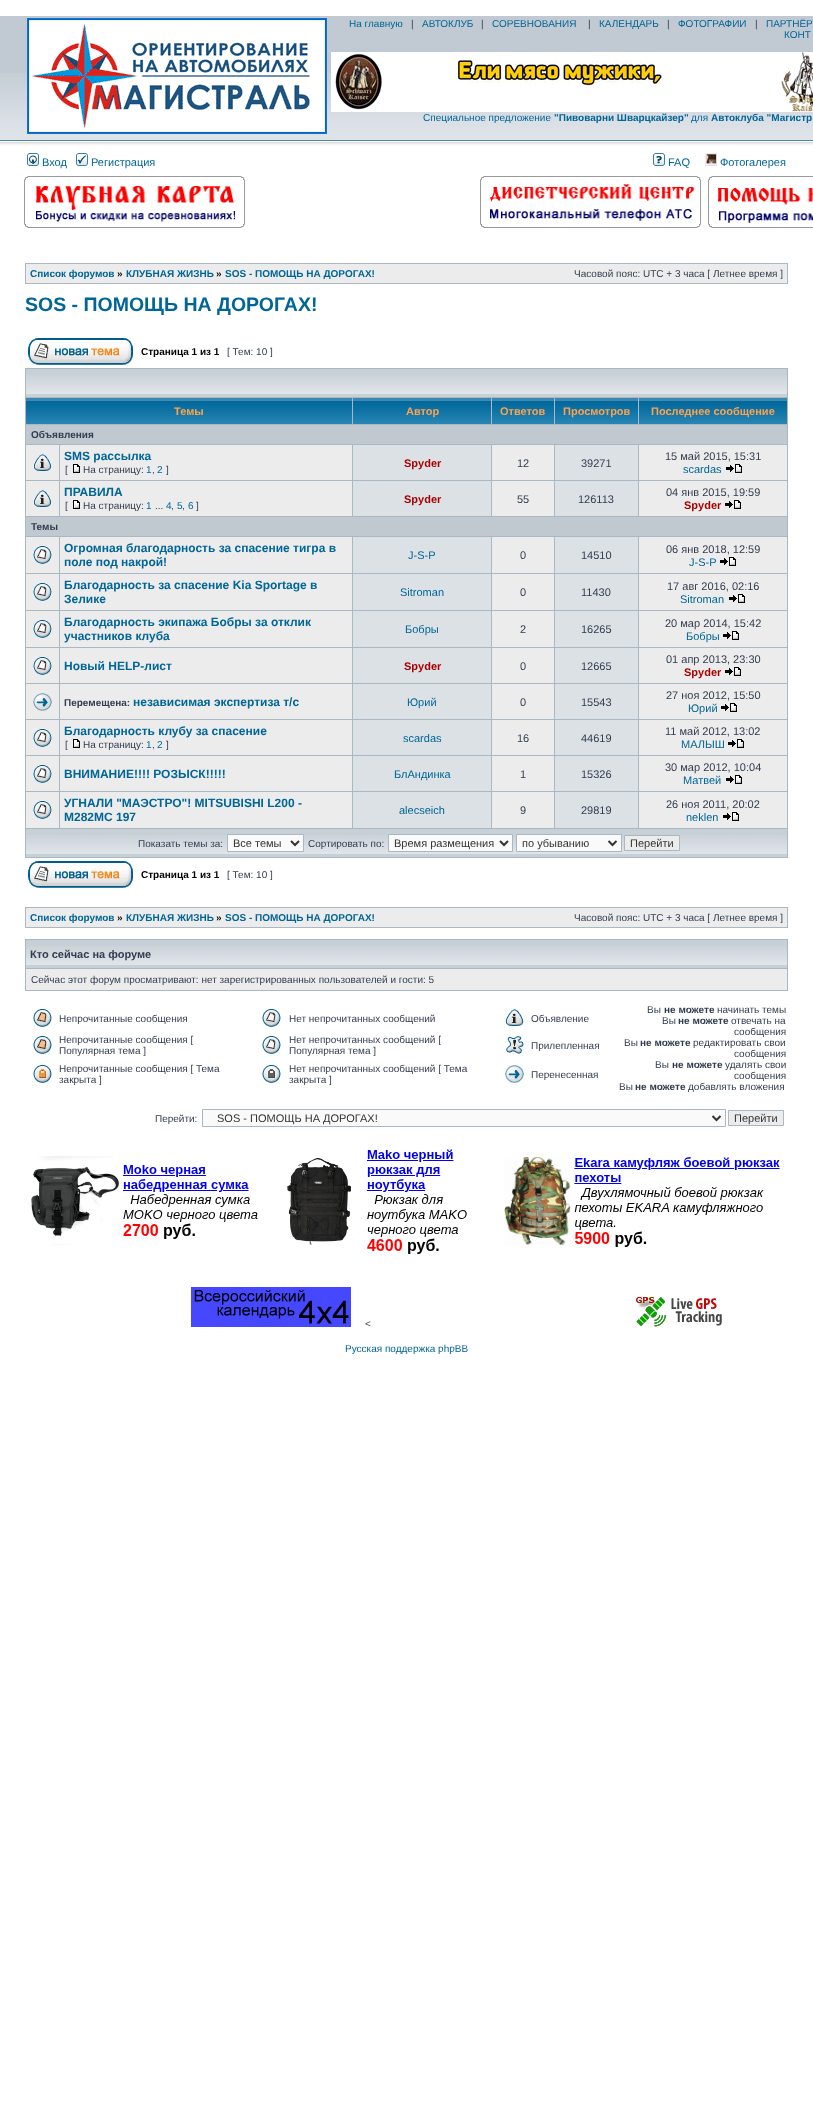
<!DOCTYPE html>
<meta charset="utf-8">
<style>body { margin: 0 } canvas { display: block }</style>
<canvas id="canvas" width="813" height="2101"></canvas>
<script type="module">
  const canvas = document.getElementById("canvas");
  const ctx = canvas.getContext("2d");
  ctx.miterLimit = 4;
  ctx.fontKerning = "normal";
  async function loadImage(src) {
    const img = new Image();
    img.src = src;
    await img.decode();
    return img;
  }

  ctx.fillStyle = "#ffffff";
  ctx.fillRect(0, 0, 813, 2101);
  ctx.fillStyle = "#c1cad2";
  ctx.fillRect(0, 16, 813, 57);
  ctx.drawImage(await loadImage("img1.png"), 0, 73, 813, 78);
  ctx.drawImage(await loadImage("img2.png"), 27, 18, 300, 116);
  ctx.font = "10px Liberation Sans";
  ctx.fillStyle = "#006597";
  ctx.fillText("На главную", 349, 27);
  ctx.fillStyle = "#323d4f";
  ctx.fillText("|", 411, 27);
  ctx.fillStyle = "#006597";
  ctx.fillText("АВТОКЛУБ", 422, 27);
  ctx.fillStyle = "#323d4f";
  ctx.fillText("|", 481, 27);
  ctx.fillStyle = "#006597";
  ctx.fillText("СОРЕВНОВАНИЯ", 492, 27);
  ctx.fillStyle = "#323d4f";
  ctx.fillText("|", 588, 27);
  ctx.fillStyle = "#006597";
  ctx.fillText("КАЛЕНДАРЬ", 599, 27);
  ctx.fillStyle = "#323d4f";
  ctx.fillText("|", 667, 27);
  ctx.fillStyle = "#006597";
  ctx.fillText("ФОТОГРАФИИ", 678, 27);
  ctx.fillStyle = "#323d4f";
  ctx.fillText("|", 755, 27);
  ctx.fillStyle = "#006597";
  ctx.fillText("ПАРТНЁР", 766, 27);
  ctx.fillText("КОНТ", 784, 38);
  ctx.drawImage(await loadImage("img3.png"), 331, 52, 482, 60);
  ctx.fillText("Специальное предложение", 423, 121);
  ctx.font = "bold 10px Liberation Sans";
  ctx.fillText("\"Пивоварни Шварцкайзер\"", 554, 121);
  ctx.font = "10px Liberation Sans";
  ctx.fillText("для", 691, 121);
  ctx.font = "bold 10px Liberation Sans";
  ctx.fillText("Автоклуба \"Магистр", 711, 121);
  ctx.drawImage(await loadImage("img4.png"), 27, 153, 12, 13);
  ctx.font = "11px Liberation Sans";
  ctx.fillText("Вход", 42, 166);
  ctx.drawImage(await loadImage("img5.png"), 76, 153, 12, 13);
  ctx.fillText("Регистрация", 91, 166);
  ctx.drawImage(await loadImage("img6.png"), 653, 153, 12, 13);
  ctx.fillText("FAQ", 668, 166);
  ctx.drawImage(await loadImage("img7.png"), 705, 153, 12, 13);
  ctx.fillText("Фотогалерея", 720, 166);
  ctx.drawImage(await loadImage("img8.png"), 24, 176, 222, 52);
  ctx.drawImage(await loadImage("img9.png"), 480, 176, 222, 52);
  ctx.drawImage(await loadImage("img10.png"), 708, 176, 105, 52);
  ctx.fillStyle = "#a9b8c2";
  ctx.fillRect(25, 263, 763, 21);
  ctx.fillStyle = "#ececec";
  ctx.fillRect(26, 264, 761, 19);
  ctx.font = "bold 10px Liberation Sans";
  ctx.fillStyle = "#006597";
  ctx.fillText("Список форумов", 30, 277);
  ctx.fillStyle = "#000000";
  ctx.fillText("»", 117, 277);
  ctx.fillStyle = "#006597";
  ctx.fillText("КЛУБНАЯ ЖИЗНЬ", 126, 277);
  ctx.fillStyle = "#000000";
  ctx.fillText("»", 216, 277);
  ctx.fillStyle = "#006597";
  ctx.fillText("SOS - ПОМОЩЬ НА ДОРОГАХ!", 225, 277);
  ctx.font = "10px Liberation Sans";
  ctx.fillStyle = "#323d4f";
  ctx.fillText("Часовой пояс: UTC + 3 часа [ Летнее время ]", 574, 277);
  ctx.font = "bold 19.5px Liberation Sans";
  ctx.fillStyle = "#006597";
  ctx.fillText("SOS - ПОМОЩЬ НА ДОРОГАХ!", 25, 311);
  ctx.drawImage(await loadImage("img11.png"), 28, 338, 105, 27);
  ctx.font = "bold 10px Liberation Sans";
  ctx.fillStyle = "#000000";
  ctx.fillText("Страница 1 из 1", 141, 355);
  ctx.font = "10px Liberation Sans";
  ctx.fillStyle = "#323d4f";
  ctx.fillText("[ Тем: 10 ]", 227, 355);
  ctx.fillStyle = "#a9b8c2";
  ctx.fillRect(25, 368, 763, 490);
  ctx.fillStyle = "#c7d0d7";
  ctx.fillRect(26, 369, 761, 28);
  ctx.drawImage(await loadImage("img12.png"), 26, 375, 761, 19);
  ctx.drawImage(await loadImage("img13.png"), 26, 398, 326, 26);
  ctx.font = "bold 11px Liberation Sans";
  ctx.fillStyle = "#ffa34f";
  ctx.fillText("Темы", 174, 415);
  ctx.drawImage(await loadImage("img14.png"), 353, 398, 138, 26);
  ctx.fillText("Автор", 406, 415);
  ctx.drawImage(await loadImage("img15.png"), 492, 398, 62, 26);
  ctx.fillText("Ответов", 500, 415);
  ctx.drawImage(await loadImage("img16.png"), 555, 398, 83, 26);
  ctx.fillText("Просмотров", 563, 415);
  ctx.drawImage(await loadImage("img17.png"), 639, 398, 148, 26);
  ctx.fillText("Последнее сообщение", 651, 415);
  ctx.fillStyle = "#c0c8d0";
  ctx.fillRect(26, 425, 761, 19);
  ctx.font = "bold 10px Liberation Sans";
  ctx.fillStyle = "#323d4f";
  ctx.fillText("Объявления", 31, 438);
  ctx.fillStyle = "#ececec";
  ctx.fillRect(26, 445, 33, 35);
  ctx.drawImage(await loadImage("img18.png"), 33, 454, 19, 17);
  ctx.fillRect(60, 445, 292, 35);
  ctx.font = "bold 12px Liberation Sans";
  ctx.fillStyle = "#006597";
  ctx.fillText("SMS рассылка", 64, 460);
  ctx.font = "10px Liberation Sans";
  ctx.fillStyle = "#323d4f";
  ctx.fillText("[", 65, 473);
  ctx.drawImage(await loadImage("img19.png"), 73, 464, 7, 9);
  ctx.fillText("На страницу:", 83, 473);
  ctx.fillStyle = "#006597";
  ctx.fillText("1", 146, 473);
  ctx.fillStyle = "#323d4f";
  ctx.fillText(",", 152, 473);
  ctx.fillStyle = "#006597";
  ctx.fillText("2", 157, 473);
  ctx.fillStyle = "#323d4f";
  ctx.fillText("]", 166, 473);
  ctx.fillStyle = "#dce1e5";
  ctx.fillRect(353, 445, 138, 35);
  ctx.font = "bold 11px Liberation Sans";
  ctx.fillStyle = "#aa0000";
  ctx.fillText("Spyder", 404, 467);
  ctx.fillStyle = "#ececec";
  ctx.fillRect(492, 445, 62, 35);
  ctx.font = "11px Liberation Sans";
  ctx.fillStyle = "#323d4f";
  ctx.fillText("12", 517, 467);
  ctx.fillStyle = "#dce1e5";
  ctx.fillRect(555, 445, 83, 35);
  ctx.fillStyle = "#323d4f";
  ctx.fillText("39271", 581, 467);
  ctx.fillStyle = "#ececec";
  ctx.fillRect(639, 445, 148, 35);
  ctx.fillStyle = "#323d4f";
  ctx.fillText("15 май 2015, 15:31", 665, 460);
  ctx.fillStyle = "#006597";
  ctx.fillText("scardas", 683, 473);
  ctx.drawImage(await loadImage("img20.png"), 726, 464, 16, 9);
  ctx.fillStyle = "#ececec";
  ctx.fillRect(26, 481, 33, 35);
  ctx.drawImage(await loadImage("img18.png"), 33, 490, 19, 17);
  ctx.fillRect(60, 481, 292, 35);
  ctx.font = "bold 12px Liberation Sans";
  ctx.fillStyle = "#006597";
  ctx.fillText("ПРАВИЛА", 64, 496);
  ctx.font = "10px Liberation Sans";
  ctx.fillStyle = "#323d4f";
  ctx.fillText("[", 65, 509);
  ctx.drawImage(await loadImage("img19.png"), 73, 500, 7, 9);
  ctx.fillText("На страницу:", 83, 509);
  ctx.fillStyle = "#006597";
  ctx.fillText("1", 146, 509);
  ctx.fillStyle = "#323d4f";
  ctx.fillText("...", 155, 509);
  ctx.fillStyle = "#006597";
  ctx.fillText("4", 166, 509);
  ctx.fillStyle = "#323d4f";
  ctx.fillText(",", 171, 509);
  ctx.fillStyle = "#006597";
  ctx.fillText("5", 177, 509);
  ctx.fillStyle = "#323d4f";
  ctx.fillText(",", 182, 509);
  ctx.fillStyle = "#006597";
  ctx.fillText("6", 188, 509);
  ctx.fillStyle = "#323d4f";
  ctx.fillText("]", 196, 509);
  ctx.fillStyle = "#dce1e5";
  ctx.fillRect(353, 481, 138, 35);
  ctx.font = "bold 11px Liberation Sans";
  ctx.fillStyle = "#aa0000";
  ctx.fillText("Spyder", 404, 503);
  ctx.fillStyle = "#ececec";
  ctx.fillRect(492, 481, 62, 35);
  ctx.font = "11px Liberation Sans";
  ctx.fillStyle = "#323d4f";
  ctx.fillText("55", 517, 503);
  ctx.fillStyle = "#dce1e5";
  ctx.fillRect(555, 481, 83, 35);
  ctx.fillStyle = "#323d4f";
  ctx.fillText("126113", 578, 503);
  ctx.fillStyle = "#ececec";
  ctx.fillRect(639, 481, 148, 35);
  ctx.fillStyle = "#323d4f";
  ctx.fillText("04 янв 2015, 19:59", 666, 496);
  ctx.font = "bold 11px Liberation Sans";
  ctx.fillStyle = "#aa0000";
  ctx.fillText("Spyder", 684, 509);
  ctx.drawImage(await loadImage("img20.png"), 725, 500, 16, 9);
  ctx.fillStyle = "#c0c8d0";
  ctx.fillRect(26, 517, 761, 19);
  ctx.font = "bold 10px Liberation Sans";
  ctx.fillStyle = "#323d4f";
  ctx.fillText("Темы", 31, 530);
  ctx.fillStyle = "#ececec";
  ctx.fillRect(26, 537, 33, 36);
  ctx.drawImage(await loadImage("img21.png"), 33, 546, 19, 18);
  ctx.fillRect(60, 537, 292, 36);
  ctx.font = "bold 12px Liberation Sans";
  ctx.fillStyle = "#006597";
  ctx.fillText("Огромная благодарность за спасение тигра в", 64, 552);
  ctx.fillText("поле под накрой!", 64, 566);
  ctx.fillStyle = "#dce1e5";
  ctx.fillRect(353, 537, 138, 36);
  ctx.font = "11px Liberation Sans";
  ctx.fillStyle = "#006597";
  ctx.fillText("J-S-P", 408, 559);
  ctx.fillStyle = "#ececec";
  ctx.fillRect(492, 537, 62, 36);
  ctx.fillStyle = "#323d4f";
  ctx.fillText("0", 520, 559);
  ctx.fillStyle = "#dce1e5";
  ctx.fillRect(555, 537, 83, 36);
  ctx.fillStyle = "#323d4f";
  ctx.fillText("14510", 581, 559);
  ctx.fillStyle = "#ececec";
  ctx.fillRect(639, 537, 148, 36);
  ctx.fillStyle = "#323d4f";
  ctx.fillText("06 янв 2018, 12:59", 666, 553);
  ctx.fillStyle = "#006597";
  ctx.fillText("J-S-P", 689, 566);
  ctx.drawImage(await loadImage("img20.png"), 720, 557, 16, 9);
  ctx.fillStyle = "#ececec";
  ctx.fillRect(26, 574, 33, 36);
  ctx.drawImage(await loadImage("img21.png"), 33, 583, 19, 18);
  ctx.fillRect(60, 574, 292, 36);
  ctx.font = "bold 12px Liberation Sans";
  ctx.fillStyle = "#006597";
  ctx.fillText("Благодарность за спасение Kia Sportage в", 64, 589);
  ctx.fillText("Зелике", 64, 603);
  ctx.fillStyle = "#dce1e5";
  ctx.fillRect(353, 574, 138, 36);
  ctx.font = "11px Liberation Sans";
  ctx.fillStyle = "#006597";
  ctx.fillText("Sitroman", 400, 596);
  ctx.fillStyle = "#ececec";
  ctx.fillRect(492, 574, 62, 36);
  ctx.fillStyle = "#323d4f";
  ctx.fillText("0", 520, 596);
  ctx.fillStyle = "#dce1e5";
  ctx.fillRect(555, 574, 83, 36);
  ctx.fillStyle = "#323d4f";
  ctx.fillText("11430", 581, 596);
  ctx.fillStyle = "#ececec";
  ctx.fillRect(639, 574, 148, 36);
  ctx.fillStyle = "#323d4f";
  ctx.fillText("17 авг 2016, 02:16", 667, 590);
  ctx.fillStyle = "#006597";
  ctx.fillText("Sitroman", 680, 603);
  ctx.drawImage(await loadImage("img20.png"), 729, 594, 16, 9);
  ctx.fillStyle = "#ececec";
  ctx.fillRect(26, 611, 33, 36);
  ctx.drawImage(await loadImage("img21.png"), 33, 620, 19, 18);
  ctx.fillRect(60, 611, 292, 36);
  ctx.font = "bold 12px Liberation Sans";
  ctx.fillStyle = "#006597";
  ctx.fillText("Благодарность экипажа Бобры за отклик", 64, 626);
  ctx.fillText("участников клуба", 64, 640);
  ctx.fillStyle = "#dce1e5";
  ctx.fillRect(353, 611, 138, 36);
  ctx.font = "11px Liberation Sans";
  ctx.fillStyle = "#006597";
  ctx.fillText("Бобры", 405, 633);
  ctx.fillStyle = "#ececec";
  ctx.fillRect(492, 611, 62, 36);
  ctx.fillStyle = "#323d4f";
  ctx.fillText("2", 520, 633);
  ctx.fillStyle = "#dce1e5";
  ctx.fillRect(555, 611, 83, 36);
  ctx.fillStyle = "#323d4f";
  ctx.fillText("16265", 581, 633);
  ctx.fillStyle = "#ececec";
  ctx.fillRect(639, 611, 148, 36);
  ctx.fillStyle = "#323d4f";
  ctx.fillText("20 мар 2014, 15:42", 665, 627);
  ctx.fillStyle = "#006597";
  ctx.fillText("Бобры", 686, 640);
  ctx.drawImage(await loadImage("img20.png"), 723, 631, 16, 9);
  ctx.fillStyle = "#ececec";
  ctx.fillRect(26, 648, 33, 35);
  ctx.drawImage(await loadImage("img21.png"), 33, 657, 19, 18);
  ctx.fillRect(60, 648, 292, 35);
  ctx.font = "bold 12px Liberation Sans";
  ctx.fillStyle = "#006597";
  ctx.fillText("Новый HELP-лист", 64, 670);
  ctx.fillStyle = "#dce1e5";
  ctx.fillRect(353, 648, 138, 35);
  ctx.font = "bold 11px Liberation Sans";
  ctx.fillStyle = "#aa0000";
  ctx.fillText("Spyder", 404, 670);
  ctx.fillStyle = "#ececec";
  ctx.fillRect(492, 648, 62, 35);
  ctx.font = "11px Liberation Sans";
  ctx.fillStyle = "#323d4f";
  ctx.fillText("0", 520, 670);
  ctx.fillStyle = "#dce1e5";
  ctx.fillRect(555, 648, 83, 35);
  ctx.fillStyle = "#323d4f";
  ctx.fillText("12665", 581, 670);
  ctx.fillStyle = "#ececec";
  ctx.fillRect(639, 648, 148, 35);
  ctx.fillStyle = "#323d4f";
  ctx.fillText("01 апр 2013, 23:30", 666, 663);
  ctx.font = "bold 11px Liberation Sans";
  ctx.fillStyle = "#aa0000";
  ctx.fillText("Spyder", 684, 676);
  ctx.drawImage(await loadImage("img20.png"), 725, 667, 16, 9);
  ctx.fillStyle = "#ececec";
  ctx.fillRect(26, 684, 33, 35);
  ctx.drawImage(await loadImage("img22.png"), 33, 693, 19, 18);
  ctx.fillRect(60, 684, 292, 35);
  ctx.font = "bold 10px Liberation Sans";
  ctx.fillStyle = "#323d4f";
  ctx.fillText("Перемещена:", 64, 706);
  ctx.font = "bold 12px Liberation Sans";
  ctx.fillStyle = "#006597";
  ctx.fillText("независимая экспертиза т/с", 133, 706);
  ctx.fillStyle = "#dce1e5";
  ctx.fillRect(353, 684, 138, 35);
  ctx.font = "11px Liberation Sans";
  ctx.fillStyle = "#006597";
  ctx.fillText("Юрий", 407, 706);
  ctx.fillStyle = "#ececec";
  ctx.fillRect(492, 684, 62, 35);
  ctx.fillStyle = "#323d4f";
  ctx.fillText("0", 520, 706);
  ctx.fillStyle = "#dce1e5";
  ctx.fillRect(555, 684, 83, 35);
  ctx.fillStyle = "#323d4f";
  ctx.fillText("15543", 581, 706);
  ctx.fillStyle = "#ececec";
  ctx.fillRect(639, 684, 148, 35);
  ctx.fillStyle = "#323d4f";
  ctx.fillText("27 ноя 2012, 15:50", 666, 699);
  ctx.fillStyle = "#006597";
  ctx.fillText("Юрий", 688, 712);
  ctx.drawImage(await loadImage("img20.png"), 721, 703, 16, 9);
  ctx.fillStyle = "#ececec";
  ctx.fillRect(26, 720, 33, 35);
  ctx.drawImage(await loadImage("img21.png"), 33, 729, 19, 18);
  ctx.fillRect(60, 720, 292, 35);
  ctx.font = "bold 12px Liberation Sans";
  ctx.fillStyle = "#006597";
  ctx.fillText("Благодарность клубу за спасение", 64, 735);
  ctx.font = "10px Liberation Sans";
  ctx.fillStyle = "#323d4f";
  ctx.fillText("[", 65, 748);
  ctx.drawImage(await loadImage("img19.png"), 73, 739, 7, 9);
  ctx.fillText("На страницу:", 83, 748);
  ctx.fillStyle = "#006597";
  ctx.fillText("1", 146, 748);
  ctx.fillStyle = "#323d4f";
  ctx.fillText(",", 152, 748);
  ctx.fillStyle = "#006597";
  ctx.fillText("2", 157, 748);
  ctx.fillStyle = "#323d4f";
  ctx.fillText("]", 166, 748);
  ctx.fillStyle = "#dce1e5";
  ctx.fillRect(353, 720, 138, 35);
  ctx.font = "11px Liberation Sans";
  ctx.fillStyle = "#006597";
  ctx.fillText("scardas", 403, 742);
  ctx.fillStyle = "#ececec";
  ctx.fillRect(492, 720, 62, 35);
  ctx.fillStyle = "#323d4f";
  ctx.fillText("16", 517, 742);
  ctx.fillStyle = "#dce1e5";
  ctx.fillRect(555, 720, 83, 35);
  ctx.fillStyle = "#323d4f";
  ctx.fillText("44619", 581, 742);
  ctx.fillStyle = "#ececec";
  ctx.fillRect(639, 720, 148, 35);
  ctx.fillStyle = "#323d4f";
  ctx.fillText("11 май 2012, 13:02", 665, 735);
  ctx.fillStyle = "#006597";
  ctx.fillText("МАЛЫШ", 681, 748);
  ctx.drawImage(await loadImage("img20.png"), 728, 739, 16, 9);
  ctx.fillStyle = "#ececec";
  ctx.fillRect(26, 756, 33, 35);
  ctx.drawImage(await loadImage("img21.png"), 33, 765, 19, 18);
  ctx.fillRect(60, 756, 292, 35);
  ctx.font = "bold 12px Liberation Sans";
  ctx.fillStyle = "#006597";
  ctx.fillText("ВНИМАНИЕ!!!! РОЗЫСК!!!!!", 64, 778);
  ctx.fillStyle = "#dce1e5";
  ctx.fillRect(353, 756, 138, 35);
  ctx.font = "11px Liberation Sans";
  ctx.fillStyle = "#006597";
  ctx.fillText("БлАндинка", 394, 778);
  ctx.fillStyle = "#ececec";
  ctx.fillRect(492, 756, 62, 35);
  ctx.fillStyle = "#323d4f";
  ctx.fillText("1", 520, 778);
  ctx.fillStyle = "#dce1e5";
  ctx.fillRect(555, 756, 83, 35);
  ctx.fillStyle = "#323d4f";
  ctx.fillText("15326", 581, 778);
  ctx.fillStyle = "#ececec";
  ctx.fillRect(639, 756, 148, 35);
  ctx.fillStyle = "#323d4f";
  ctx.fillText("30 мар 2012, 10:04", 665, 771);
  ctx.fillStyle = "#006597";
  ctx.fillText("Матвей", 683, 784);
  ctx.drawImage(await loadImage("img20.png"), 726, 775, 16, 9);
  ctx.fillStyle = "#ececec";
  ctx.fillRect(26, 792, 33, 36);
  ctx.drawImage(await loadImage("img21.png"), 33, 801, 19, 18);
  ctx.fillRect(60, 792, 292, 36);
  ctx.font = "bold 12px Liberation Sans";
  ctx.fillStyle = "#006597";
  ctx.fillText("УГНАЛИ \"МАЭСТРО\"! MITSUBISHI L200 -", 64, 807);
  ctx.fillText("M282MC 197", 64, 821);
  ctx.fillStyle = "#dce1e5";
  ctx.fillRect(353, 792, 138, 36);
  ctx.font = "11px Liberation Sans";
  ctx.fillStyle = "#006597";
  ctx.fillText("alecseich", 399, 814);
  ctx.fillStyle = "#ececec";
  ctx.fillRect(492, 792, 62, 36);
  ctx.fillStyle = "#323d4f";
  ctx.fillText("9", 520, 814);
  ctx.fillStyle = "#dce1e5";
  ctx.fillRect(555, 792, 83, 36);
  ctx.fillStyle = "#323d4f";
  ctx.fillText("29819", 581, 814);
  ctx.fillStyle = "#ececec";
  ctx.fillRect(639, 792, 148, 36);
  ctx.fillStyle = "#323d4f";
  ctx.fillText("26 ноя 2011, 20:02", 666, 808);
  ctx.fillStyle = "#006597";
  ctx.fillText("neklen", 686, 821);
  ctx.drawImage(await loadImage("img20.png"), 723, 812, 16, 9);
  ctx.fillStyle = "#c7d0d7";
  ctx.fillRect(26, 829, 761, 28);
  ctx.drawImage(await loadImage("img12.png"), 26, 835, 761, 19);
  ctx.font = "10px Liberation Sans";
  ctx.fillStyle = "#323d4f";
  ctx.fillText("Показать темы за:", 138, 847);
  ctx.fillStyle = "#fafafa";
  ctx.beginPath();
  ctx.rect(227.5, 834.5, 76, 17);
  ctx.fill();
  ctx.strokeStyle = "#a9b8c2";
  ctx.stroke();
  ctx.beginPath();
  ctx.moveTo(291, 841);
  ctx.lineTo(295, 845);
  ctx.lineTo(299, 841);
  ctx.strokeStyle = "#333333";
  ctx.lineWidth = 2;
  ctx.stroke();
  ctx.font = "11px Liberation Sans";
  ctx.fillStyle = "#333333";
  ctx.fillText("Все темы", 233, 847);
  ctx.font = "10px Liberation Sans";
  ctx.fillStyle = "#323d4f";
  ctx.fillText("Сортировать по:", 308, 847);
  ctx.fillStyle = "#fafafa";
  ctx.beginPath();
  ctx.rect(388.5, 834.5, 124, 17);
  ctx.fill();
  ctx.strokeStyle = "#a9b8c2";
  ctx.lineWidth = 1;
  ctx.stroke();
  ctx.beginPath();
  ctx.moveTo(500, 841);
  ctx.lineTo(504, 845);
  ctx.lineTo(508, 841);
  ctx.strokeStyle = "#333333";
  ctx.lineWidth = 2;
  ctx.stroke();
  ctx.font = "11px Liberation Sans";
  ctx.fillStyle = "#333333";
  ctx.fillText("Время размещения", 394, 847);
  ctx.fillStyle = "#fafafa";
  ctx.beginPath();
  ctx.rect(516.5, 834.5, 105, 17);
  ctx.fill();
  ctx.strokeStyle = "#a9b8c2";
  ctx.lineWidth = 1;
  ctx.stroke();
  ctx.beginPath();
  ctx.moveTo(608.5, 841);
  ctx.lineTo(612.5, 845);
  ctx.lineTo(616.5, 841);
  ctx.strokeStyle = "#333333";
  ctx.lineWidth = 2;
  ctx.stroke();
  ctx.fillStyle = "#333333";
  ctx.fillText("по убыванию", 522, 847);
  ctx.fillStyle = "#ececec";
  ctx.beginPath();
  ctx.rect(624.5, 835.5, 55, 15);
  ctx.fill();
  ctx.strokeStyle = "#a9b8c2";
  ctx.lineWidth = 1;
  ctx.stroke();
  ctx.fillStyle = "#333333";
  ctx.fillText("Перейти", 630, 847);
  ctx.drawImage(await loadImage("img11.png"), 28, 861, 105, 27);
  ctx.font = "bold 10px Liberation Sans";
  ctx.fillStyle = "#000000";
  ctx.fillText("Страница 1 из 1", 141, 878);
  ctx.font = "10px Liberation Sans";
  ctx.fillStyle = "#323d4f";
  ctx.fillText("[ Тем: 10 ]", 227, 878);
  ctx.fillStyle = "#a9b8c2";
  ctx.fillRect(25, 907, 763, 21);
  ctx.fillStyle = "#ececec";
  ctx.fillRect(26, 908, 761, 19);
  ctx.font = "bold 10px Liberation Sans";
  ctx.fillStyle = "#006597";
  ctx.fillText("Список форумов", 30, 921);
  ctx.fillStyle = "#000000";
  ctx.fillText("»", 117, 921);
  ctx.fillStyle = "#006597";
  ctx.fillText("КЛУБНАЯ ЖИЗНЬ", 126, 921);
  ctx.fillStyle = "#000000";
  ctx.fillText("»", 216, 921);
  ctx.fillStyle = "#006597";
  ctx.fillText("SOS - ПОМОЩЬ НА ДОРОГАХ!", 225, 921);
  ctx.font = "10px Liberation Sans";
  ctx.fillStyle = "#323d4f";
  ctx.fillText("Часовой пояс: UTC + 3 часа [ Летнее время ]", 574, 921);
  ctx.fillStyle = "#a9b8c2";
  ctx.fillRect(25, 939, 763, 52);
  ctx.fillStyle = "#c7d0d7";
  ctx.fillRect(26, 940, 761, 28);
  ctx.drawImage(await loadImage("img12.png"), 26, 946, 761, 19);
  ctx.font = "bold 11px Liberation Sans";
  ctx.fillStyle = "#323d4f";
  ctx.fillText("Кто сейчас на форуме", 30, 958);
  ctx.fillStyle = "#ececec";
  ctx.fillRect(26, 969, 761, 21);
  ctx.font = "10px Liberation Sans";
  ctx.fillStyle = "#323d4f";
  ctx.fillText("Сейчас этот форум просматривают: нет зарегистрированных пользователей и гости: 5", 31, 983);
  ctx.drawImage(await loadImage("img23.png"), 33, 1009, 19, 18);
  ctx.fillText("Непрочитанные сообщения", 59, 1022);
  ctx.drawImage(await loadImage("img24.png"), 262, 1009, 19, 18);
  ctx.fillText("Нет непрочитанных сообщений", 289, 1022);
  ctx.drawImage(await loadImage("img25.png"), 505, 1009, 19, 17);
  ctx.fillText("Объявление", 531, 1022);
  ctx.drawImage(await loadImage("img26.png"), 33, 1036, 19, 18);
  ctx.fillText("Непрочитанные сообщения [", 59, 1043);
  ctx.fillText("Популярная тема ]", 59, 1054);
  ctx.drawImage(await loadImage("img27.png"), 262, 1036, 19, 18);
  ctx.fillText("Нет непрочитанных сообщений [", 289, 1043);
  ctx.fillText("Популярная тема ]", 289, 1054);
  ctx.drawImage(await loadImage("img28.png"), 506, 1036, 18, 18);
  ctx.fillText("Прилепленная", 531, 1049);
  ctx.drawImage(await loadImage("img29.png"), 33, 1065, 19, 18);
  ctx.fillText("Непрочитанные сообщения [ Тема", 59, 1072);
  ctx.fillText("закрыта ]", 59, 1083);
  ctx.drawImage(await loadImage("img30.png"), 262, 1065, 19, 18);
  ctx.fillText("Нет непрочитанных сообщений [ Тема", 289, 1072);
  ctx.fillText("закрыта ]", 289, 1083);
  ctx.drawImage(await loadImage("img31.png"), 505, 1065, 19, 18);
  ctx.fillText("Перенесенная", 531, 1078);
  ctx.fillText("Вы", 647, 1013);
  ctx.font = "bold 10px Liberation Sans";
  ctx.fillText("не можете", 664, 1013);
  ctx.font = "10px Liberation Sans";
  ctx.fillText("начинать темы", 717, 1013);
  ctx.fillText("Вы", 662, 1024);
  ctx.font = "bold 10px Liberation Sans";
  ctx.fillText("не можете", 678, 1024);
  ctx.font = "10px Liberation Sans";
  ctx.fillText("отвечать на", 731, 1024);
  ctx.fillText("сообщения", 734, 1035);
  ctx.fillText("Вы", 624, 1046);
  ctx.font = "bold 10px Liberation Sans";
  ctx.fillText("не можете", 640, 1046);
  ctx.font = "10px Liberation Sans";
  ctx.fillText("редактировать свои", 693, 1046);
  ctx.fillText("сообщения", 734, 1057);
  ctx.fillText("Вы", 655, 1068);
  ctx.font = "bold 10px Liberation Sans";
  ctx.fillText("не можете", 672, 1068);
  ctx.font = "10px Liberation Sans";
  ctx.fillText("удалять свои", 725, 1068);
  ctx.fillText("сообщения", 734, 1079);
  ctx.fillText("Вы", 619, 1090);
  ctx.font = "bold 10px Liberation Sans";
  ctx.fillText("не можете", 635, 1090);
  ctx.font = "10px Liberation Sans";
  ctx.fillText("добавлять вложения", 688, 1090);
  ctx.fillText("Перейти:", 155, 1122);
  ctx.fillStyle = "#fafafa";
  ctx.beginPath();
  ctx.rect(202.5, 1109.5, 523, 17);
  ctx.fill();
  ctx.stroke();
  ctx.beginPath();
  ctx.moveTo(712.5, 1116);
  ctx.lineTo(716.5, 1120);
  ctx.lineTo(720.5, 1116);
  ctx.strokeStyle = "#333333";
  ctx.lineWidth = 2;
  ctx.stroke();
  ctx.font = "11px Liberation Sans";
  ctx.fillStyle = "#333333";
  ctx.fillText("SOS - ПОМОЩЬ НА ДОРОГАХ!", 217, 1122);
  ctx.fillStyle = "#ececec";
  ctx.beginPath();
  ctx.rect(728.5, 1110.5, 55, 15);
  ctx.fill();
  ctx.strokeStyle = "#a9b8c2";
  ctx.lineWidth = 1;
  ctx.stroke();
  ctx.fillStyle = "#333333";
  ctx.fillText("Перейти", 734, 1122);
  ctx.drawImage(await loadImage("img32.png"), 31, 1149, 749, 105);
  ctx.drawImage(await loadImage("img33.png"), 191, 1287, 160, 40);
  ctx.font = "10px Liberation Sans";
  ctx.fillStyle = "#323d4f";
  ctx.fillText("<", 365, 1327);
  ctx.drawImage(await loadImage("img34.png"), 636, 1296, 86, 31);
  ctx.fillStyle = "#006597";
  ctx.fillText("Русская поддержка phpBB", 345, 1352);
</script>
